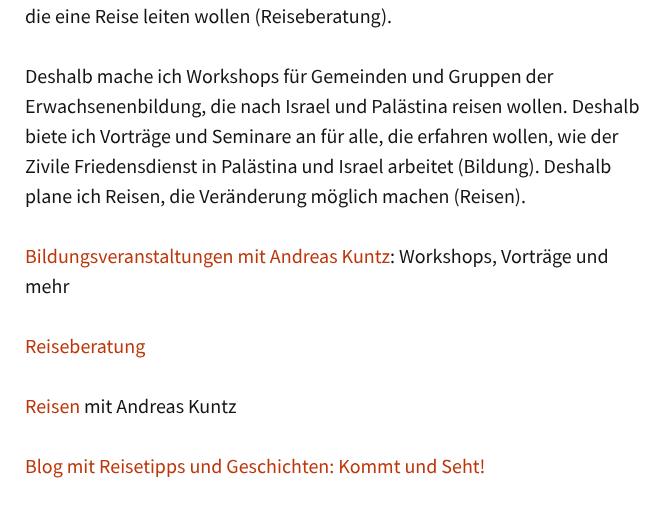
<!DOCTYPE html>
<meta charset="utf-8">
<style>body { margin: 0 } canvas { display: block }</style>
<canvas id="canvas" width="669" height="511"></canvas>
<script type="module">
  const canvas = document.getElementById("canvas");
  const ctx = canvas.getContext("2d");
  ctx.miterLimit = 4;
  ctx.fontKerning = "normal";

  ctx.fillStyle = "#ffffff";
  ctx.fillRect(0, 0, 669, 511);
  ctx.font = "20px Source Sans Pro";
  ctx.fillStyle = "#141412";
  ctx.fillText("die eine Reise leiten wollen (Reiseberatung).", 25, 23);
  ctx.fillText("Deshalb mache ich Workshops für Gemeinden und Gruppen der", 25, 83);
  ctx.fillText("Erwachsenenbildung, die nach Israel und Palästina reisen wollen. Deshalb", 25, 113);
  ctx.fillText("biete ich Vorträge und Seminare an für alle, die erfahren wollen, wie der", 25, 143);
  ctx.fillText("Zivile Friedensdienst in Palästina und Israel arbeitet (Bildung). Deshalb", 25, 173);
  ctx.fillText("plane ich Reisen, die Veränderung möglich machen (Reisen).", 25, 203);
  ctx.fillStyle = "#bc360a";
  ctx.fillText("Bildungsveranstaltungen mit Andreas Kuntz", 25, 263);
  ctx.fillStyle = "#141412";
  ctx.fillText(": Workshops, Vorträge und", 390, 263);
  ctx.fillText("mehr", 25, 293);
  ctx.fillStyle = "#bc360a";
  ctx.fillText("Reiseberatung", 25, 353);
  ctx.fillText("Reisen", 25, 413);
  ctx.fillStyle = "#141412";
  ctx.fillText("mit Andreas Kuntz", 84, 413);
  ctx.fillStyle = "#bc360a";
  ctx.fillText("Blog mit Reisetipps und Geschichten: Kommt und Seht!", 25, 473);
</script>
